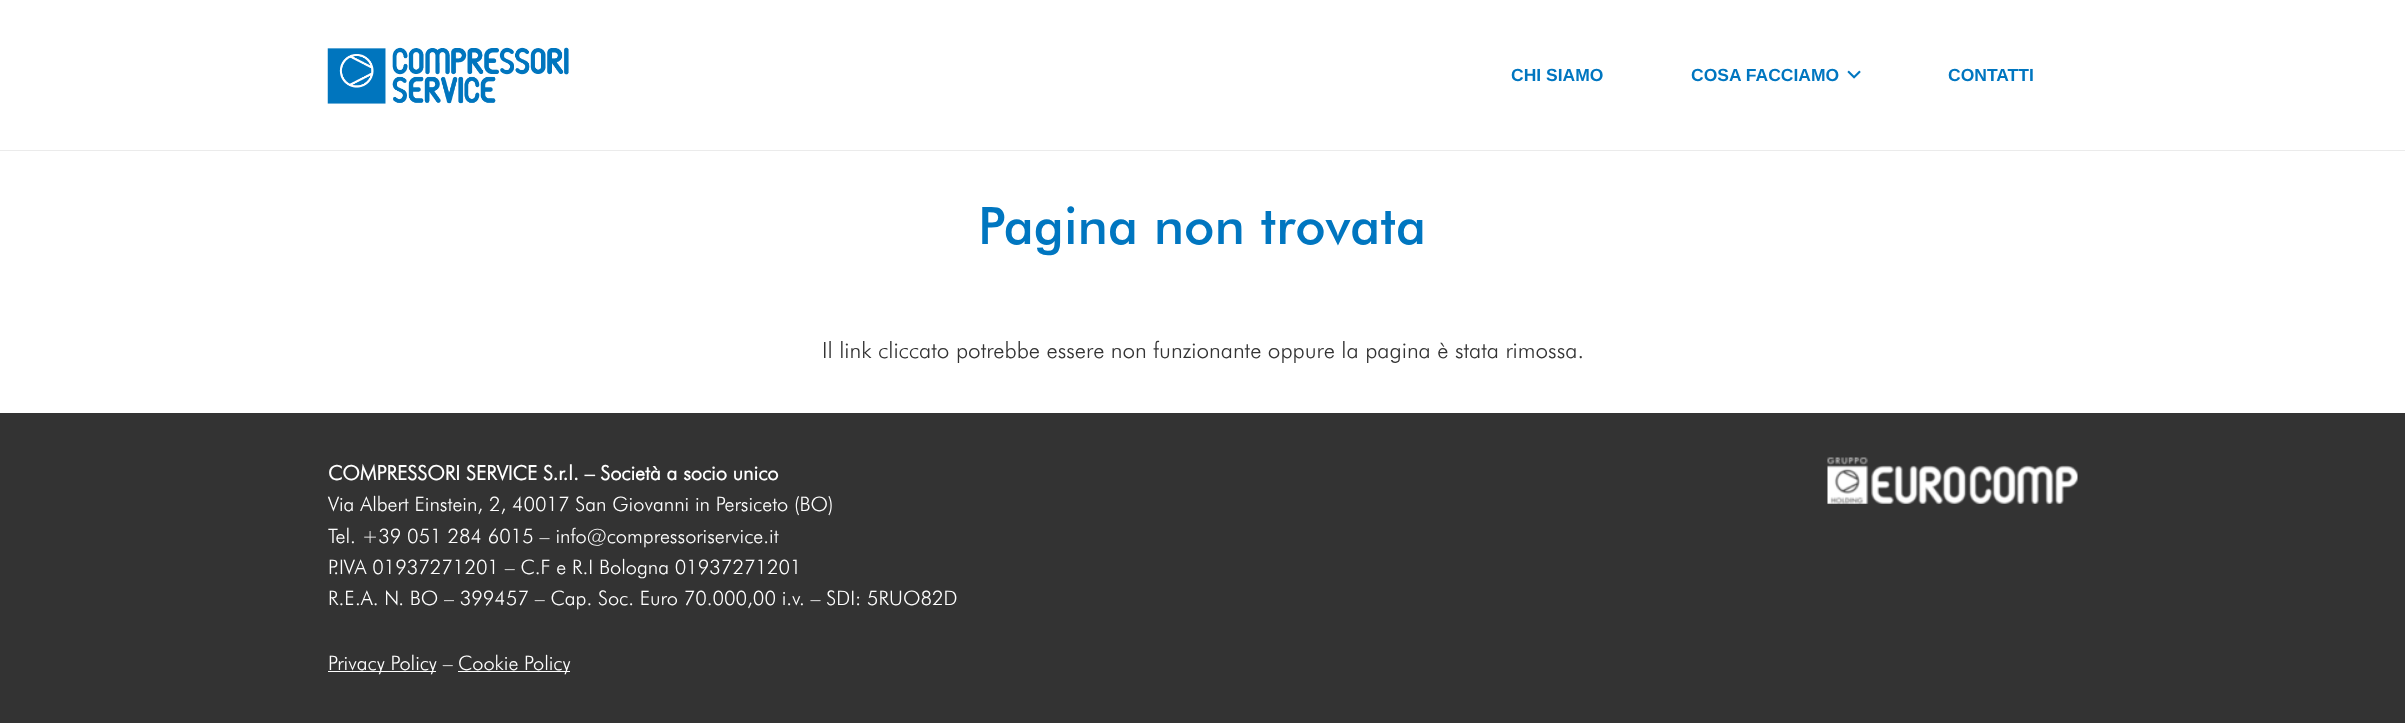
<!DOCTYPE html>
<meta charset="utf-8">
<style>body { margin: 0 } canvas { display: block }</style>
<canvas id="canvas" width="2405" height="723"></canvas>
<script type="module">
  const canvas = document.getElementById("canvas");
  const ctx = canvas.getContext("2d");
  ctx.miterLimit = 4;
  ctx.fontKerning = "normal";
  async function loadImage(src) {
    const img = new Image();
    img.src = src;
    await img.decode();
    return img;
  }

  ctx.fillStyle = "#ffffff";
  ctx.fillRect(0, 0, 2405, 723);
  ctx.fillStyle = "#ebebeb";
  ctx.fillRect(0, 150, 2405, 1);
  ctx.drawImage(await loadImage("img1.png"), 327, 47, 242, 57);
  ctx.font = "bold 17.5px Liberation Sans";
  ctx.fillStyle = "#0076c0";
  ctx.fillText("CHI SIAMO", 1511, 81);
  ctx.fillText("COSA FACCIAMO", 1691, 81);
  ctx.drawImage(await loadImage("img2.png"), 1847, 70, 14, 9);
  ctx.fillText("CONTATTI", 1948, 81);
  ctx.font = "500 51.75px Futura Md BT";
  ctx.fillText("Pagina non trovata", 978, 244);
  ctx.font = "300 22.5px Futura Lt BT";
  ctx.fillStyle = "#333333";
  ctx.fillText("Il link cliccato potrebbe essere non funzionante oppure la pagina è stata rimossa.", 822, 358);
  ctx.fillRect(0, 413, 2405, 310);
  ctx.font = "bold 20px Futura Lt BT";
  ctx.fillStyle = "#ffffff";
  ctx.fillText("COMPRESSORI SERVICE S.r.l. – Società a socio unico", 328, 480);
  ctx.font = "300 20px Futura Lt BT";
  ctx.fillText("Via Albert Einstein, 2, 40017 San Giovanni in Persiceto (BO)", 328, 511);
  ctx.fillText("Tel. +39 051 284 6015 – info@compressoriservice.it", 328, 543);
  ctx.fillText("P.IVA 01937271201 – C.F e R.I Bologna 01937271201", 328, 574);
  ctx.fillText("R.E.A. N. BO – 399457 – Cap. Soc. Euro 70.000,00 i.v. – SDI: 5RUO82D", 328, 605);
  ctx.drawImage(await loadImage("img3.png"), 1827, 457, 251, 47);
  ctx.fillRect(328, 671, 108, 1);
  ctx.fillText("Privacy Policy –", 328, 670);
  ctx.fillRect(458, 671, 112, 1);
  ctx.fillText("Cookie Policy", 458, 670);
</script>
